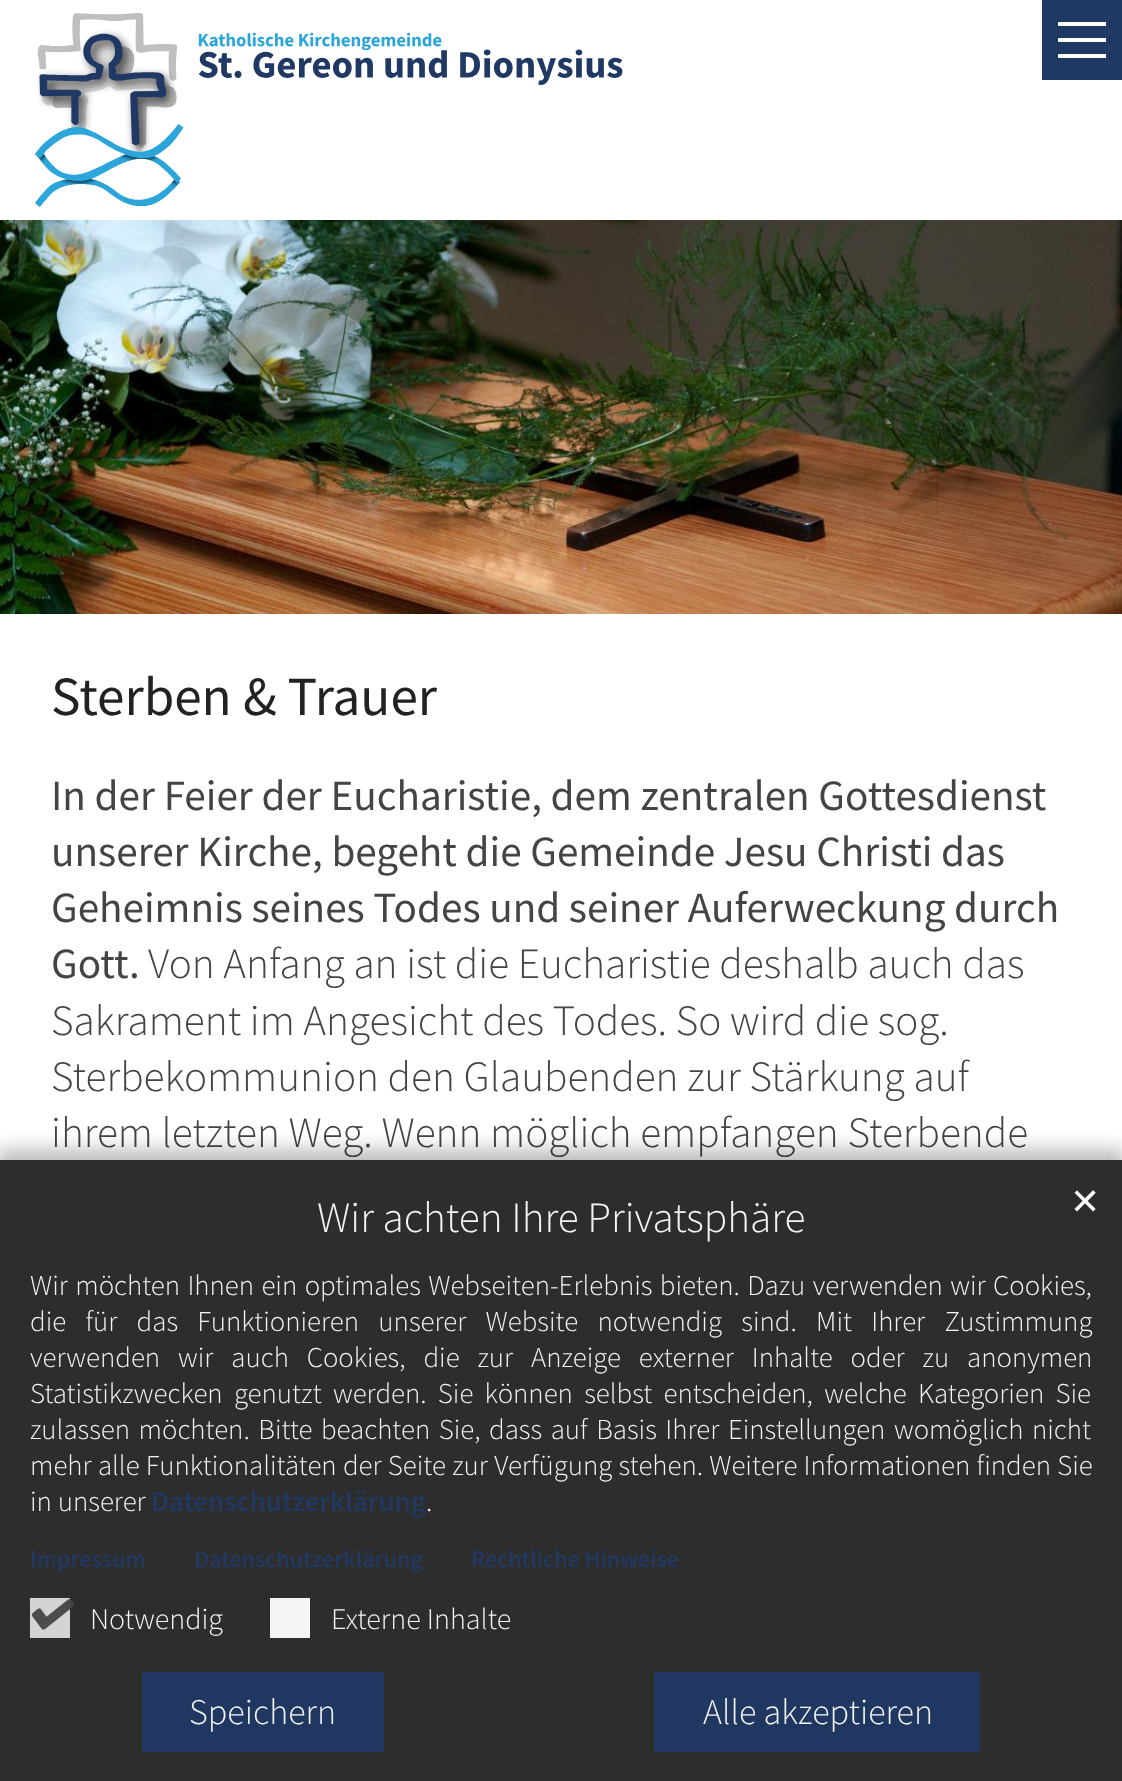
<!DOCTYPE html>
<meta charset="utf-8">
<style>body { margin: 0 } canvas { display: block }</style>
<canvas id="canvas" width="1122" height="1781"></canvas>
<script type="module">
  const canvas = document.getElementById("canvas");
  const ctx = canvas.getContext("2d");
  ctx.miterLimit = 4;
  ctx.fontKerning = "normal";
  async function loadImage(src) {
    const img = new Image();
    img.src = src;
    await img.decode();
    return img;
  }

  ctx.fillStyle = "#ffffff";
  ctx.fillRect(0, 0, 1122, 1781);
  ctx.fillStyle = "#2d2d2d";
  ctx.fillRect(0, 1160, 1122, 621);
  ctx.drawImage(await loadImage("img1.png"), 35, 13, 588, 194);
  ctx.fillStyle = "#203964";
  ctx.fillRect(1042, 0, 80, 80);
  ctx.fillStyle = "#ffffff";
  ctx.fillRect(1058, 38, 48, 4);
  ctx.fillRect(1058, 22, 48, 4);
  ctx.fillRect(1058, 54, 48, 4);
  ctx.drawImage(await loadImage("img2.png"), 0, 220, 1122, 394);
  ctx.font = "55.25px Source Sans Pro";
  ctx.fillStyle = "#222222";
  ctx.fillText("Sterben & Trauer", 51, 715);
  ctx.font = "43.2px Source Sans Pro";
  ctx.fillStyle = "#444444";
  ctx.fillText("In der Feier der Eucharistie, dem zentralen Gottesdienst", 51, 810);
  ctx.fillText("unserer Kirche, begeht die Gemeinde Jesu Christi das", 51, 866);
  ctx.fillText("Geheimnis seines Todes und seiner Auferweckung durch", 51, 922);
  ctx.fillText("Gott.", 51, 978);
  ctx.font = "300 43.2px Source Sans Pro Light";
  ctx.fillText("Von Anfang an ist die Eucharistie deshalb auch das", 148, 978);
  ctx.fillText("Sakrament im Angesicht des Todes. So wird die sog.", 51, 1035);
  ctx.fillText("Sterbekommunion den Glaubenden zur Stärkung auf", 51, 1091);
  ctx.fillText("ihrem letzten Weg. Wenn möglich empfangen Sterbende", 51, 1147);
  ctx.save();
  ctx.beginPath();
  ctx.rect(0, 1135, 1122, 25);
  ctx.clip();
  ctx.fillStyle = "rgba(0, 0, 0, 0.28)";
  ctx.filter = "blur(10px)";
  ctx.beginPath();
  ctx.rect(-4, 1150, 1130, 630);
  ctx.fill();
  ctx.filter = "none";
  ctx.restore();
  ctx.fillStyle = "#f4f4f4";
  ctx.fillText("Wir achten Ihre Privatsphäre", 317, 1232);
  ctx.font = "36px DejaVu Sans";
  ctx.fillStyle = "#ffffff";
  ctx.fillText("✕", 1070, 1214);
  ctx.wordSpacing = "1.6px";
  ctx.font = "300 28.8px Source Sans Pro Light";
  ctx.fillStyle = "#f4f4f4";
  ctx.fillText("Wir möchten Ihnen ein optimales Webseiten-Erlebnis bieten. Dazu verwenden wir Cookies,", 30, 1295);
  ctx.wordSpacing = "13.5px";
  ctx.fillText("die für das Funktionieren unserer Website notwendig sind. Mit Ihrer Zustimmung", 30, 1331);
  ctx.wordSpacing = "12.1px";
  ctx.fillText("verwenden wir auch Cookies, die zur Anzeige externer Inhalte oder zu anonymen", 30, 1367);
  ctx.wordSpacing = "5.5px";
  ctx.fillText("Statistikzwecken genutzt werden. Sie können selbst entscheiden, welche Kategorien Sie", 30, 1403);
  ctx.wordSpacing = "2.75px";
  ctx.fillText("zulassen möchten. Bitte beachten Sie, dass auf Basis Ihrer Einstellungen womöglich nicht", 30, 1439);
  ctx.wordSpacing = "0.5px";
  ctx.fillText("mehr alle Funktionalitäten der Seite zur Verfügung stehen. Weitere Informationen finden Sie", 30, 1475);
  ctx.wordSpacing = "0px";
  ctx.fillText("in unserer", 30, 1511);
  ctx.font = "600 28.8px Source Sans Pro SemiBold";
  ctx.fillStyle = "#213861";
  ctx.fillText("Datenschutzerklärung", 151, 1511);
  ctx.font = "300 28.8px Source Sans Pro Light";
  ctx.fillStyle = "#f4f4f4";
  ctx.fillText(".", 426, 1511);
  ctx.font = "600 24px Source Sans Pro SemiBold";
  ctx.fillStyle = "#213861";
  ctx.fillText("Impressum", 30, 1567);
  ctx.fillText("Datenschutzerklärung", 194, 1567);
  ctx.fillText("Rechtliche Hinweise", 471, 1567);
  ctx.fillStyle = "rgba(221, 221, 221, 0.95)";
  ctx.fillRect(30, 1598, 40, 40);
  ctx.drawImage(await loadImage("img3.png"), 31, 1599, 43, 31);
  ctx.font = "300 30px Source Sans Pro Light";
  ctx.fillStyle = "#f4f4f4";
  ctx.fillText("Notwendig", 90, 1629);
  ctx.fillStyle = "rgba(255, 255, 255, 0.95)";
  ctx.fillRect(270, 1598, 40, 40);
  ctx.fillStyle = "#f4f4f4";
  ctx.fillText("Externe Inhalte", 331, 1629);
  ctx.fillStyle = "rgba(32, 57, 100, 0.95)";
  ctx.fillRect(142, 1672, 242, 80);
  ctx.font = "300 36px Source Sans Pro Light";
  ctx.fillStyle = "#f4f4f4";
  ctx.fillText("Speichern", 189, 1724);
  ctx.fillStyle = "rgba(32, 57, 100, 0.95)";
  ctx.fillRect(654, 1672, 326, 80);
  ctx.fillStyle = "#f4f4f4";
  ctx.fillText("Alle akzeptieren", 703, 1724);
</script>
